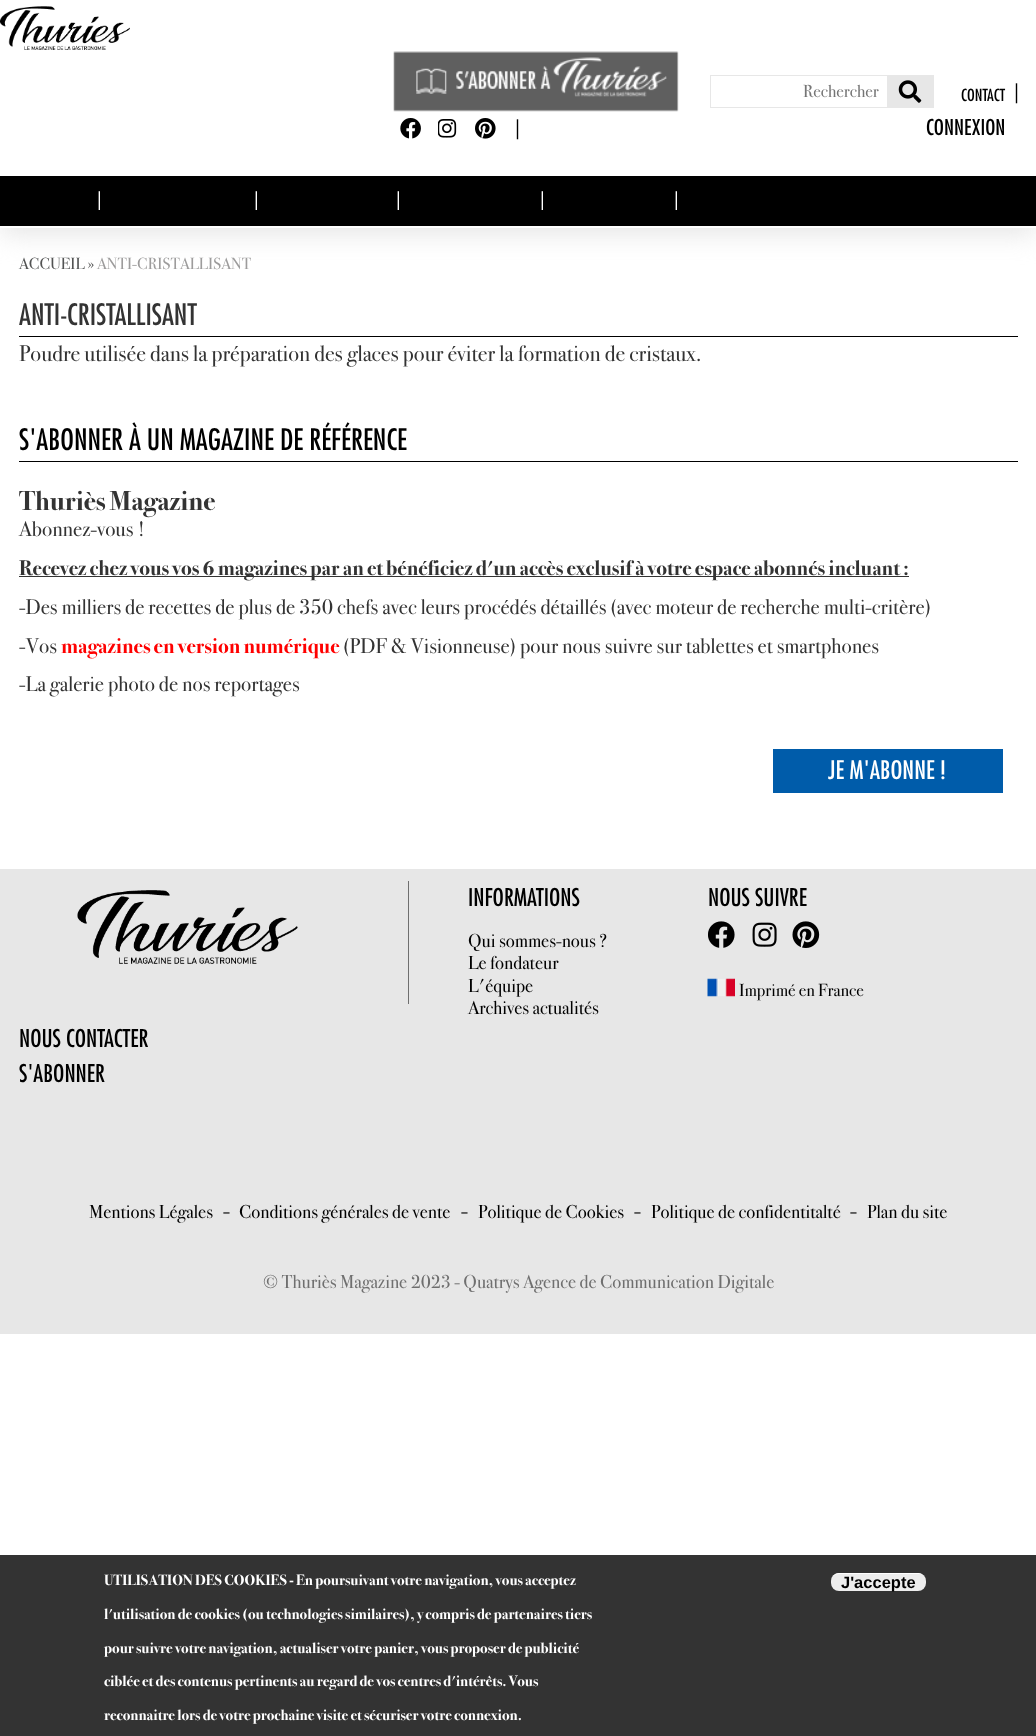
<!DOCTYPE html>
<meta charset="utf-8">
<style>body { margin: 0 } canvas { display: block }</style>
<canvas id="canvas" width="1036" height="1736"></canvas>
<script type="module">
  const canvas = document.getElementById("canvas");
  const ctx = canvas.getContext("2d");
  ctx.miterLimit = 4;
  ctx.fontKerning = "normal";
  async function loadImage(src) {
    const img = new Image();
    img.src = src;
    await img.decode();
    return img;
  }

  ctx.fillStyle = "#ffffff";
  ctx.fillRect(0, 0, 1036, 1736);
  ctx.save();
  ctx.beginPath();
  ctx.moveTo(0, 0);
  ctx.lineTo(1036, 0);
  ctx.lineTo(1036, 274);
  ctx.lineTo(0, 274);
  ctx.closePath();
  ctx.moveTo(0, 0);
  ctx.lineTo(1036, 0);
  ctx.lineTo(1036, 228);
  ctx.lineTo(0, 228);
  ctx.closePath();
  ctx.clip("evenodd");
  ctx.fillStyle = "#e5e5e5";
  ctx.filter = "blur(13px)";
  ctx.beginPath();
  ctx.rect(0, 6, 1036, 228);
  ctx.fill();
  ctx.filter = "none";
  ctx.restore();
  ctx.drawImage(await loadImage("img1.png"), 0, 6, 130, 44);
  ctx.drawImage(await loadImage("img2.png"), 393, 51, 286, 61);
  ctx.strokeStyle = "#e7e7e7";
  ctx.strokeRect(710.5, 75.5, 177, 32);
  ctx.font = "17.5px 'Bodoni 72'";
  ctx.fillStyle = "#757575";
  ctx.fillText("Rechercher", 803, 97);
  ctx.fillStyle = "#e7e7e7";
  ctx.fillRect(888, 75, 46, 33);
  ctx.drawImage(await loadImage("img3.png"), 898, 80, 24, 23);
  ctx.font = "500 16.25px Futura";
  ctx.fillStyle = "#000000";
  ctx.fillText("CONTACT", 961, 101);
  ctx.font = "500 20px Futura";
  ctx.fillText("|", 1014, 99);
  ctx.drawImage(await loadImage("img4.png"), 400, 118, 21, 21);
  ctx.drawImage(await loadImage("img5.png"), 438, 119, 19, 19);
  ctx.drawImage(await loadImage("img6.png"), 475, 118, 21, 21);
  ctx.fillText("|", 515, 135);
  ctx.font = "500 21.25px Futura";
  ctx.fillText("CONNEXION", 926, 135);
  ctx.fillRect(0, 176, 1036, 50);
  ctx.letterSpacing = "1px";
  ctx.font = "500 18.75px Futura";
  ctx.fillStyle = "#ffffff";
  ctx.fillText("|", 97, 206);
  ctx.fillText("|", 254, 206);
  ctx.fillText("|", 396, 206);
  ctx.fillText("|", 540, 206);
  ctx.fillText("|", 674, 206);
  ctx.letterSpacing = "0px";
  ctx.font = "16.25px 'Bodoni 72'";
  ctx.fillStyle = "#525353";
  ctx.fillText("ACCUEIL »", 19, 269);
  ctx.fillStyle = "#9d9c9c";
  ctx.fillText("ANTI-CRISTALLISANT", 97, 269);
  ctx.fillStyle = "#000000";
  ctx.fillRect(19, 336, 999, 1);
  ctx.font = "500 28.75px Futura";
  ctx.fillStyle = "#333333";
  ctx.fillText("ANTI-CRISTALLISANT", 19, 325);
  ctx.font = "22.5px 'Bodoni 72'";
  ctx.fillText("Poudre utilisée dans la préparation des glaces pour éviter la formation de cristaux.", 19, 361);
  ctx.fillStyle = "#000000";
  ctx.fillRect(19, 461, 999, 1);
  ctx.font = "500 28.75px Futura";
  ctx.fillText("S'ABONNER À UN MAGAZINE DE RÉFÉRENCE", 19, 450);
  ctx.font = "bold 27.5px 'Bodoni 72'";
  ctx.fillStyle = "#333333";
  ctx.fillText("Thuriès Magazine", 19, 510);
  ctx.font = "21.25px 'Bodoni 72'";
  ctx.fillText("Abonnez-vous !", 19, 536);
  ctx.fillRect(19, 576, 890, 1);
  ctx.font = "bold 21.25px 'Bodoni 72'";
  ctx.fillText("Recevez chez vous vos 6 magazines par an et bénéficiez d'un accès exclusif à votre espace abonnés incluant :", 19, 575);
  ctx.font = "21.25px 'Bodoni 72'";
  ctx.fillText("-Des milliers de recettes de plus de 350 chefs avec leurs procédés détaillés (avec moteur de recherche multi-critère)", 19, 614);
  ctx.fillText("-Vos", 19, 653);
  ctx.font = "bold 21.25px 'Bodoni 72'";
  ctx.fillStyle = "#ff0000";
  ctx.fillText("magazines en version numérique", 61, 653);
  ctx.font = "21.25px 'Bodoni 72'";
  ctx.fillStyle = "#333333";
  ctx.fillText("(PDF & Visionneuse) pour nous suivre sur tablettes et smartphones", 343, 653);
  ctx.fillText("-La galerie photo de nos reportages", 19, 691);
  ctx.fillStyle = "#005caa";
  ctx.fillRect(773, 749, 230, 44);
  ctx.font = "500 25px Futura";
  ctx.fillStyle = "#ffffff";
  ctx.fillText("JE M'ABONNE !", 828, 779);
  ctx.fillStyle = "#e7e7e7";
  ctx.fillRect(0, 869, 1036, 465);
  ctx.fillStyle = "#6f6f6f";
  ctx.fillRect(408, 881, 1, 123);
  ctx.drawImage(await loadImage("img7.png"), 77, 890, 221, 74);
  ctx.font = "500 23.75px Futura";
  ctx.fillStyle = "#000000";
  ctx.fillText("INFORMATIONS", 468, 906);
  ctx.font = "18.75px 'Bodoni 72'";
  ctx.fillText("Qui sommes-nous ?", 468, 947);
  ctx.fillText("Le fondateur", 468, 969);
  ctx.fillText("L'équipe", 468, 992);
  ctx.fillText("Archives actualités", 468, 1014);
  ctx.font = "500 23.75px Futura";
  ctx.fillText("NOUS SUIVRE", 708, 906);
  ctx.drawImage(await loadImage("img8.png"), 708, 921, 27, 27);
  ctx.drawImage(await loadImage("img9.png"), 752, 922, 25, 25);
  ctx.drawImage(await loadImage("img10.png"), 792, 921, 28, 27);
  ctx.drawImage(await loadImage("img11.png"), 707, 978, 28, 19);
  ctx.font = "17.5px 'Bodoni 72'";
  ctx.fillText("Imprimé en France", 739, 996);
  ctx.font = "500 23.75px Futura";
  ctx.fillText("NOUS CONTACTER", 19, 1047);
  ctx.fillText("S'ABONNER", 19, 1082);
  ctx.font = "18.75px 'Bodoni 72'";
  ctx.fillText("Mentions Légales", 89, 1218);
  ctx.font = "22.5px 'Bodoni 72'";
  ctx.fillText("-", 223, 1218);
  ctx.font = "18.75px 'Bodoni 72'";
  ctx.fillText("Conditions générales de vente", 239, 1218);
  ctx.font = "22.5px 'Bodoni 72'";
  ctx.fillText("-", 461, 1218);
  ctx.font = "18.75px 'Bodoni 72'";
  ctx.fillText("Politique de Cookies", 478, 1218);
  ctx.font = "22.5px 'Bodoni 72'";
  ctx.fillText("-", 634, 1218);
  ctx.font = "18.75px 'Bodoni 72'";
  ctx.fillText("Politique de confidentitalté", 651, 1218);
  ctx.font = "22.5px 'Bodoni 72'";
  ctx.fillText("-", 850, 1218);
  ctx.font = "18.75px 'Bodoni 72'";
  ctx.fillText("Plan du site", 867, 1218);
  ctx.fillStyle = "#6f6f6f";
  ctx.fillText("© Thuriès Magazine 2023 - Quatrys Agence de Communication Digitale", 263, 1288);
  ctx.fillStyle = "#333333";
  ctx.fillRect(0, 1555, 1036, 181);
  ctx.font = "bold 15px 'Bodoni 72'";
  ctx.fillStyle = "#ffffff";
  ctx.fillText("UTILISATION DES COOKIES - En poursuivant votre navigation, vous acceptez", 104, 1585);
  ctx.fillText("l'utilisation de cookies (ou technologies similaires), y compris de partenaires tiers", 104, 1619);
  ctx.fillText("pour suivre votre navigation, actualiser votre panier, vous proposer de publicité", 104, 1653);
  ctx.fillText("ciblée et des contenus pertinents au regard de vos centres d'intérêts. Vous", 104, 1686);
  ctx.fillText("reconnaitre lors de votre prochaine visite et sécuriser votre connexion.", 104, 1720);
  ctx.fillStyle = "#ededed";
  ctx.beginPath();
  ctx.roundRect(831, 1573, 95, 18, 8);
  ctx.fill();
  ctx.fillStyle = "#ffffff";
  ctx.beginPath();
  ctx.moveTo(839, 1574);
  ctx.lineTo(919, 1574);
  ctx.bezierCurveTo(923, 1574, 926, 1577, 926, 1581);
  ctx.bezierCurveTo(926, 1577, 922, 1573, 918, 1573);
  ctx.lineTo(839, 1573);
  ctx.bezierCurveTo(835, 1573, 831, 1577, 831, 1581);
  ctx.bezierCurveTo(831, 1577, 835, 1574, 839, 1574);
  ctx.closePath();
  ctx.fill();
  ctx.font = "bold 16.5px Liberation Sans";
  ctx.fillStyle = "#000000";
  ctx.fillText("J'accepte", 841, 1588);
</script>
